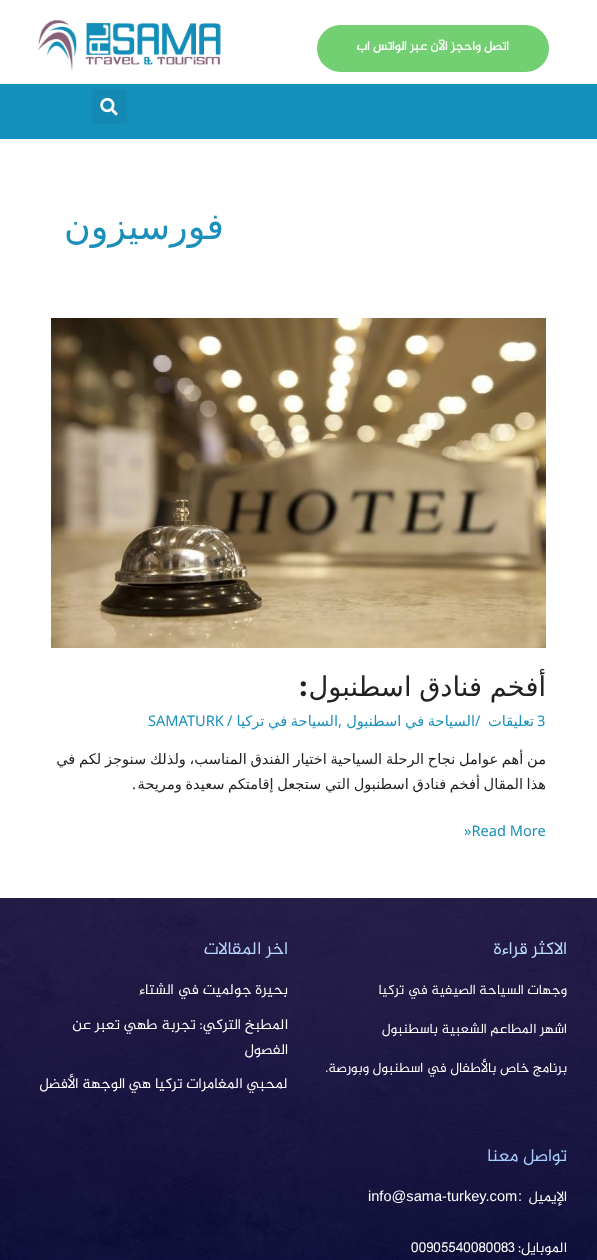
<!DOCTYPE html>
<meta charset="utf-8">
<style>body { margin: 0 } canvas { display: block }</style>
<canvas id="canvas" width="597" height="1260"></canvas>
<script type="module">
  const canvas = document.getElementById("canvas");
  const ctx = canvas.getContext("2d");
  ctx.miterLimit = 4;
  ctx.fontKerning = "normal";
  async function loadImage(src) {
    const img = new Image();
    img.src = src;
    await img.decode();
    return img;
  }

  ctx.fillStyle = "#ffffff";
  ctx.fillRect(0, 0, 597, 1260);
  ctx.fillStyle = "#73d072";
  ctx.beginPath();
  ctx.roundRect(317, 25, 232, 47, 23.5);
  ctx.fill();
  ctx.direction = "rtl";
  ctx.font = "bold 12.75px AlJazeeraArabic";
  ctx.fillStyle = "#ffffff";
  ctx.fillText("اتصل واحجز الآن عبر الواتس اب", 509, 50);
  ctx.drawImage(await loadImage("img1.png"), 37, 19, 184, 53);
  ctx.fillStyle = "#1490bc";
  ctx.fillRect(0, 84, 597, 55);
  ctx.fillStyle = "#1389b3";
  ctx.beginPath();
  ctx.roundRect(92, 89, 35, 35, 3);
  ctx.fill();
  ctx.drawImage(await loadImage("img2.png"), 100, 97, 18, 19);
  ctx.font = "36.5px DejaVu Sans";
  ctx.fillStyle = "#1a8fba";
  ctx.fillText("فورسيزون", 224, 239);
  ctx.drawImage(await loadImage("img3.png"), 51, 318, 495, 330);
  ctx.wordSpacing = "-1px";
  ctx.font = "27.25px DejaVu Sans";
  ctx.fillStyle = "#222222";
  ctx.fillText("أفخم فنادق اسطنبول", 546, 696);
  ctx.wordSpacing = "0px";
  ctx.font = "100 27.25px Montserrat";
  ctx.fillText(":", 307, 696);
  ctx.direction = "ltr";
  ctx.font = "14.6px Noto Sans";
  ctx.fillStyle = "#1a8fba";
  ctx.fillText("3", 537, 726);
  ctx.direction = "rtl";
  ctx.font = "14.6px DejaVu Sans";
  ctx.fillText("تعليقات", 534, 726);
  ctx.direction = "ltr";
  ctx.font = "14.6px Noto Sans";
  ctx.fillText("/", 475, 726);
  ctx.wordSpacing = "-1px";
  ctx.direction = "rtl";
  ctx.font = "14.6px DejaVu Sans";
  ctx.fillText("السياحة في اسطنبول", 475, 726);
  ctx.wordSpacing = "0px";
  ctx.direction = "ltr";
  ctx.font = "14.6px Noto Sans";
  ctx.fillText(",", 338, 726);
  ctx.wordSpacing = "-1px";
  ctx.direction = "rtl";
  ctx.font = "14.6px DejaVu Sans";
  ctx.fillText("السياحة في تركيا", 338, 726);
  ctx.wordSpacing = "0px";
  ctx.direction = "ltr";
  ctx.font = "14.6px Noto Sans";
  ctx.fillText("/", 227, 726);
  ctx.fillText("SAMATURK", 148, 726);
  ctx.save();
  ctx.beginPath();
  ctx.rect(51, 318, 495, 536);
  ctx.clip();
  ctx.wordSpacing = "-0.9px";
  ctx.direction = "rtl";
  ctx.font = "14.6px DejaVu Sans";
  ctx.fillStyle = "#222222";
  ctx.fillText("من أهم عوامل نجاح الرحلة السياحية اختيار الفندق المناسب، ولذلك سنوجز لكم في", 546, 764);
  ctx.wordSpacing = "-1px";
  ctx.fillText("هذا المقال أفخم فنادق اسطنبول التي ستجعل إقامتكم سعيدة ومريحة", 546, 789);
  ctx.restore();
  ctx.direction = "rtl";
  ctx.fillStyle = "#222222";
  ctx.fillText(".", 136, 789);
  ctx.direction = "ltr";
  ctx.fillStyle = "#1a8fba";
  ctx.fillText("»Read More", 464, 836);
  ctx.drawImage(await loadImage("img4.png"), 0, 898, 597, 362);
  ctx.direction = "rtl";
  ctx.font = "18px AlJazeeraArabic";
  ctx.fillStyle = "#bddfff";
  ctx.fillText("الاكثر قراءة", 567, 954);
  ctx.font = "14px AlJazeeraArabic";
  ctx.fillStyle = "#ffffff";
  ctx.fillText("وجهات السياحة الصيفية في تركيا", 567, 994);
  ctx.fillText("اشهر المطاعم الشعبية باسطنبول", 567, 1033);
  ctx.fillText("برنامج خاص بالأطفال في اسطنبول وبورصة.", 567, 1072);
  ctx.font = "18px AlJazeeraArabic";
  ctx.fillStyle = "#b7d7ff";
  ctx.fillText("اخر المقالات", 288, 954);
  ctx.font = "15px AlJazeeraArabic";
  ctx.fillStyle = "#ffffff";
  ctx.fillText("بحيرة جولميت في الشتاء", 288, 994);
  ctx.fillText("المطبخ التركي: تجربة طهي تعبر عن", 288, 1029);
  ctx.fillText("الفصول", 288, 1054);
  ctx.fillText("لمحبي المغامرات تركيا هي الوجهة الأفضل", 288, 1088);
  ctx.font = "18px AlJazeeraArabic";
  ctx.fillStyle = "#abccff";
  ctx.fillText("تواصل معنا", 567, 1161);
  ctx.font = "14.6px AlJazeeraArabic";
  ctx.fillStyle = "#ffffff";
  ctx.fillText("الإيميل", 567, 1201);
  ctx.font = "14.6px Liberation Sans";
  ctx.fillText(":", 522, 1201);
  ctx.direction = "ltr";
  ctx.fillText("info@sama-turkey.com", 368, 1201);
  ctx.direction = "rtl";
  ctx.font = "14.6px AlJazeeraArabic";
  ctx.fillText("الموبايل:", 567, 1252);
  ctx.direction = "ltr";
  ctx.fillText("00905540080083", 411, 1252);
</script>
